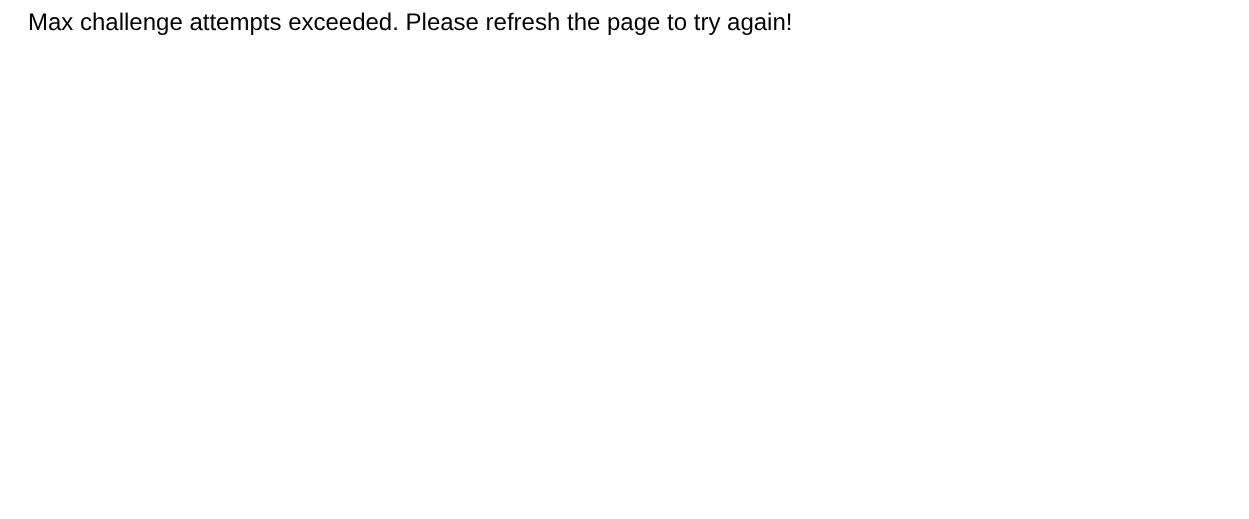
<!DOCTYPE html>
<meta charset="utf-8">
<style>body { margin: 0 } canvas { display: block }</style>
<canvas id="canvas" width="1249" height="519"></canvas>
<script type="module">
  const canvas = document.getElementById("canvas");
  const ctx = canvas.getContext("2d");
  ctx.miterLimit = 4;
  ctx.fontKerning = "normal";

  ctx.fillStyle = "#ffffff";
  ctx.fillRect(0, 0, 1249, 519);
  ctx.font = "24px Liberation Sans";
  ctx.fillStyle = "#000000";
  ctx.fillText("Max challenge attempts exceeded. Please refresh the page to try again!", 28, 30);
</script>
